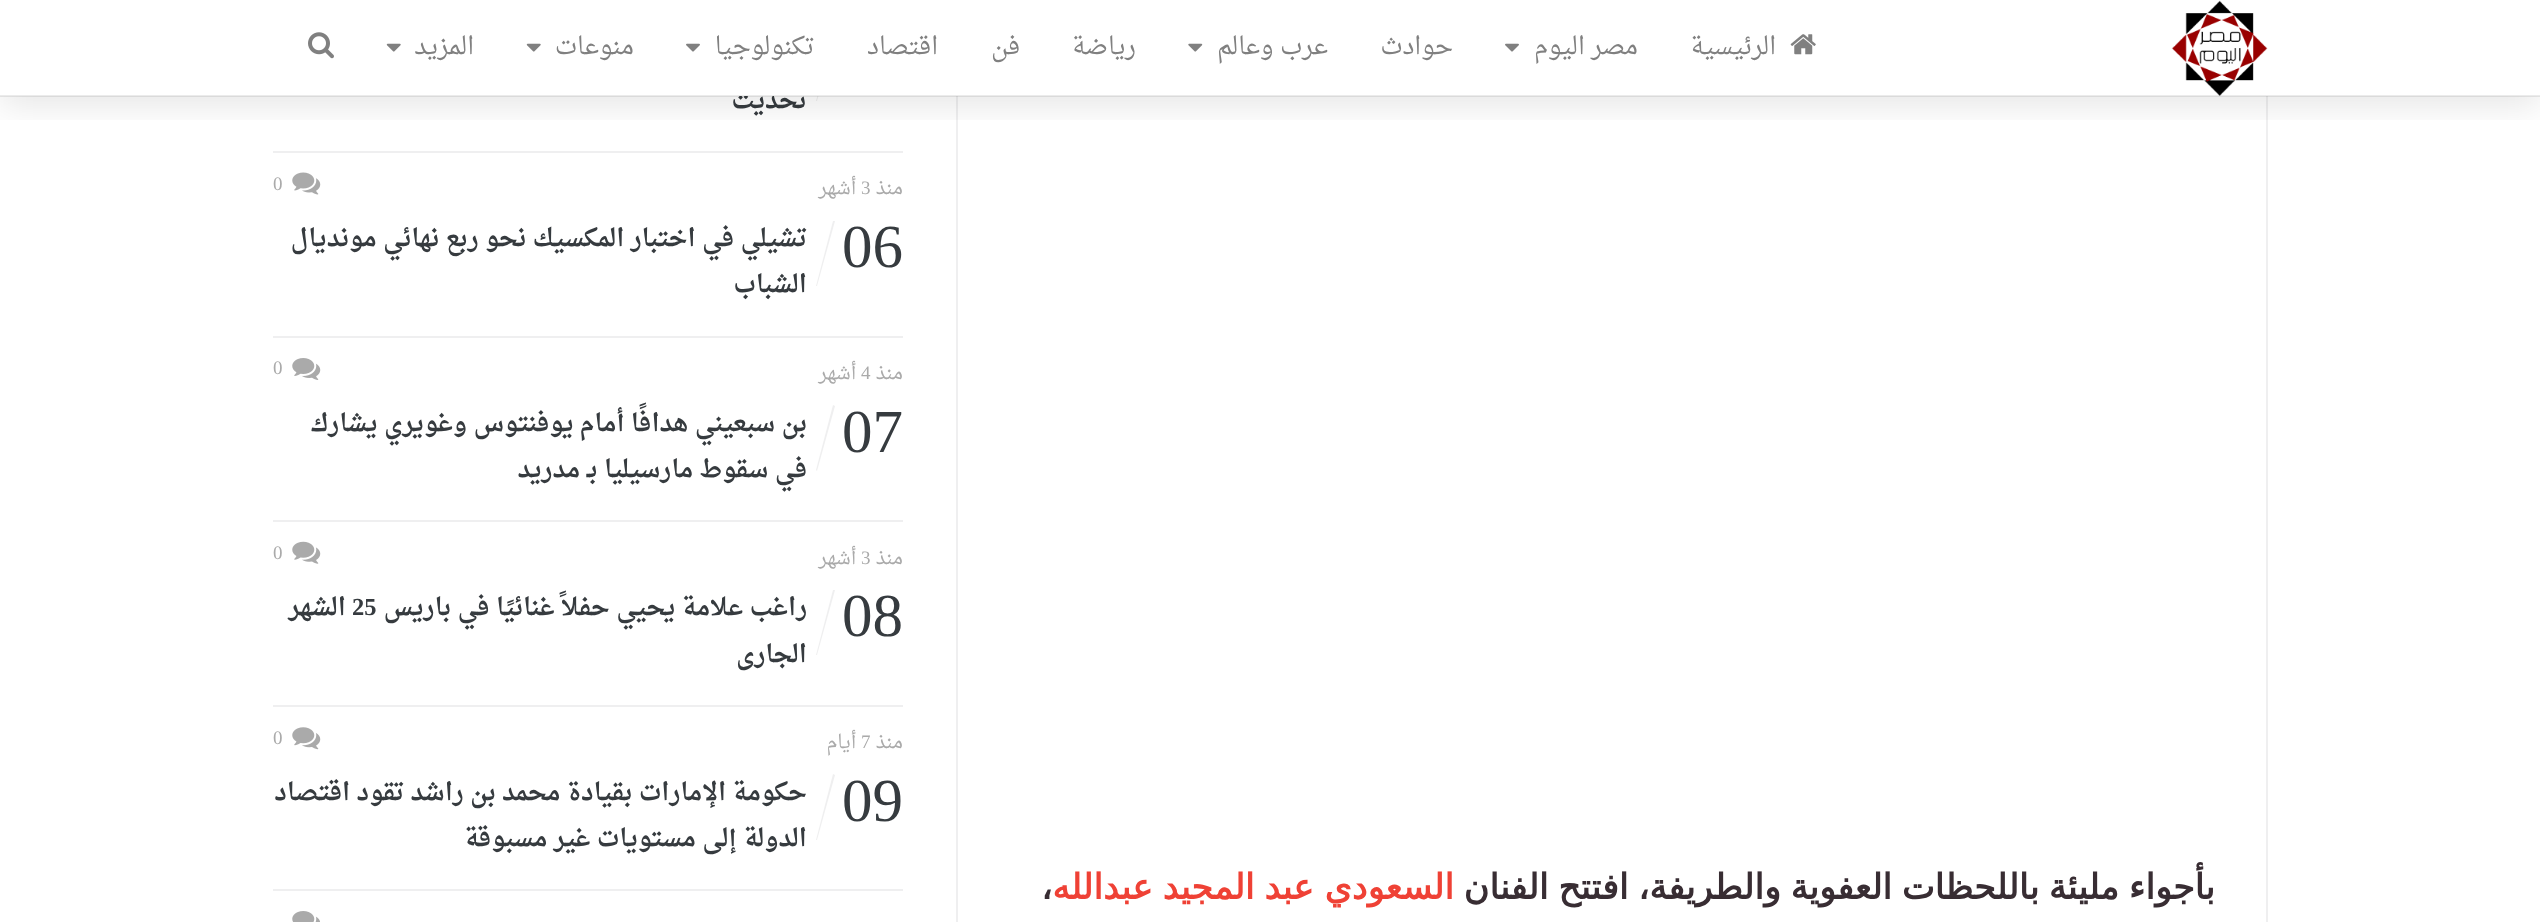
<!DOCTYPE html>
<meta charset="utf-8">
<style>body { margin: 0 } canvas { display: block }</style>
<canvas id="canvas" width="2540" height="922"></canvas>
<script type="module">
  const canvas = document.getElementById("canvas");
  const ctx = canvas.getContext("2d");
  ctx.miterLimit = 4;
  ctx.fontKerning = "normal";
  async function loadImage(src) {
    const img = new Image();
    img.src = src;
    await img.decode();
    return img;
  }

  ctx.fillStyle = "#ffffff";
  ctx.fillRect(0, 0, 2540, 922);
  ctx.fillStyle = "#efeff0";
  ctx.beginPath();
  ctx.moveTo(833, 36);
  ctx.lineTo(835, 36);
  ctx.lineTo(817, 101);
  ctx.lineTo(816, 101);
  ctx.closePath();
  ctx.fill();
  ctx.direction = "rtl";
  ctx.font = "bold 24.5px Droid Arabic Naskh";
  ctx.fillStyle = "#363b3f";
  ctx.fillText("تحديث", 807, 108);
  ctx.fillStyle = "#ffffff";
  ctx.fillRect(739, 36, 96, 60);
  ctx.fillStyle = "#efeff0";
  ctx.fillRect(2266, 96, 2, 826);
  ctx.fillRect(956, 96, 2, 826);
  ctx.fillStyle = "rgba(0, 0, 0, 0.08)";
  ctx.fillRect(0, 95, 2540, 2);
  ctx.fillStyle = "#efeff0";
  ctx.fillRect(273, 151, 630, 2);
  ctx.save();
  ctx.beginPath();
  ctx.rect(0, 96, 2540, 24);
  ctx.clip();
  ctx.fillStyle = "rgba(0, 0, 0, 0.1)";
  ctx.filter = "blur(17.5px)";
  ctx.beginPath();
  ctx.rect(0, 9, 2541, 96);
  ctx.fill();
  ctx.filter = "none";
  ctx.restore();
  ctx.drawImage(await loadImage("img1.png"), 2171, 0, 97, 96);
  ctx.drawImage(await loadImage("img2.png"), 1790, 34, 26, 21);
  ctx.font = "24.5px Droid Arabic Naskh";
  ctx.fillStyle = "#808080";
  ctx.fillText("الرئيسية", 1776, 54);
  ctx.fillText("مصر اليوم", 1638, 54);
  ctx.drawImage(await loadImage("img3.png"), 1505, 43, 14, 9);
  ctx.fillText("حوادث", 1453, 54);
  ctx.fillText("عرب وعالم", 1328, 54);
  ctx.drawImage(await loadImage("img4.png"), 1188, 43, 15, 9);
  ctx.fillText("رياضة", 1136, 54);
  ctx.fillText("فن", 1020, 54);
  ctx.fillText("اقتصاد", 938, 54);
  ctx.fillText("تكنولوجيا", 815, 54);
  ctx.drawImage(await loadImage("img3.png"), 686, 43, 14, 9);
  ctx.fillText("منوعات", 634, 54);
  ctx.drawImage(await loadImage("img5.png"), 526, 43, 15, 9);
  ctx.fillText("المزيد", 474, 54);
  ctx.drawImage(await loadImage("img5.png"), 386, 43, 15, 9);
  ctx.drawImage(await loadImage("img6.png"), 308, 32, 26, 27);
  ctx.font = "19px Droid Arabic Naskh";
  ctx.fillStyle = "#aaaaaa";
  ctx.fillText("منذ", 903, 194);
  ctx.direction = "ltr";
  ctx.font = "19px Liberation Serif";
  ctx.fillText("3", 861, 194);
  ctx.direction = "rtl";
  ctx.font = "19px Droid Arabic Naskh";
  ctx.fillText("أشهر", 856, 194);
  ctx.drawImage(await loadImage("img7.png"), 292, 172, 29, 23);
  ctx.direction = "ltr";
  ctx.font = "19px Liberation Serif";
  ctx.fillText("0", 273, 190);
  ctx.font = "61px Liberation Serif";
  ctx.fillStyle = "#363b3f";
  ctx.fillText("06", 842, 267);
  ctx.fillStyle = "#efeff0";
  ctx.beginPath();
  ctx.moveTo(833, 221);
  ctx.lineTo(835, 221);
  ctx.lineTo(817, 286);
  ctx.lineTo(816, 286);
  ctx.closePath();
  ctx.fill();
  ctx.direction = "rtl";
  ctx.font = "bold 24.5px Droid Arabic Naskh";
  ctx.fillStyle = "#363b3f";
  ctx.fillText("تشيلي في اختبار المكسيك نحو ربع نهائي مونديال", 807, 246);
  ctx.fillText("الشباب", 807, 292);
  ctx.fillStyle = "#efeff0";
  ctx.fillRect(273, 336, 630, 2);
  ctx.font = "19px Droid Arabic Naskh";
  ctx.fillStyle = "#aaaaaa";
  ctx.fillText("منذ", 903, 379);
  ctx.direction = "ltr";
  ctx.font = "19px Liberation Serif";
  ctx.fillText("4", 861, 379);
  ctx.direction = "rtl";
  ctx.font = "19px Droid Arabic Naskh";
  ctx.fillText("أشهر", 856, 379);
  ctx.drawImage(await loadImage("img8.png"), 292, 358, 29, 22);
  ctx.direction = "ltr";
  ctx.font = "19px Liberation Serif";
  ctx.fillText("0", 273, 374);
  ctx.font = "61px Liberation Serif";
  ctx.fillStyle = "#363b3f";
  ctx.fillText("07", 842, 452);
  ctx.fillStyle = "#efeff0";
  ctx.beginPath();
  ctx.moveTo(833, 405);
  ctx.lineTo(835, 406);
  ctx.lineTo(817, 471);
  ctx.lineTo(816, 470);
  ctx.closePath();
  ctx.fill();
  ctx.direction = "rtl";
  ctx.font = "bold 24.5px Droid Arabic Naskh";
  ctx.fillStyle = "#363b3f";
  ctx.fillText("بن سبعيني هدافًا أمام يوفنتوس وغويري يشارك", 807, 431);
  ctx.fillText("في سقوط مارسيليا بـ مدريد", 807, 477);
  ctx.fillStyle = "#efeff0";
  ctx.fillRect(273, 520, 630, 2);
  ctx.font = "19px Droid Arabic Naskh";
  ctx.fillStyle = "#aaaaaa";
  ctx.fillText("منذ", 903, 564);
  ctx.direction = "ltr";
  ctx.font = "19px Liberation Serif";
  ctx.fillText("3", 861, 564);
  ctx.direction = "rtl";
  ctx.font = "19px Droid Arabic Naskh";
  ctx.fillText("أشهر", 856, 564);
  ctx.drawImage(await loadImage("img9.png"), 292, 541, 29, 23);
  ctx.direction = "ltr";
  ctx.font = "19px Liberation Serif";
  ctx.fillText("0", 273, 559);
  ctx.font = "61px Liberation Serif";
  ctx.fillStyle = "#363b3f";
  ctx.fillText("08", 842, 636);
  ctx.fillStyle = "#efeff0";
  ctx.beginPath();
  ctx.moveTo(833, 590);
  ctx.lineTo(835, 590);
  ctx.lineTo(817, 655);
  ctx.lineTo(816, 655);
  ctx.closePath();
  ctx.fill();
  ctx.direction = "rtl";
  ctx.font = "bold 24.5px Droid Arabic Naskh";
  ctx.fillStyle = "#363b3f";
  ctx.fillText("راغب علامة يحيي حفلاً غنائيًا في باريس", 807, 615);
  ctx.direction = "ltr";
  ctx.font = "bold 24.5px Liberation Serif";
  ctx.fillText("25", 352, 615);
  ctx.direction = "rtl";
  ctx.font = "bold 24.5px Droid Arabic Naskh";
  ctx.fillText("الشهر", 346, 615);
  ctx.fillText("الجارى", 807, 662);
  ctx.fillStyle = "#efeff0";
  ctx.fillRect(273, 705, 630, 2);
  ctx.font = "19px Droid Arabic Naskh";
  ctx.fillStyle = "#aaaaaa";
  ctx.fillText("منذ", 903, 748);
  ctx.direction = "ltr";
  ctx.font = "19px Liberation Serif";
  ctx.fillText("7", 861, 748);
  ctx.direction = "rtl";
  ctx.font = "19px Droid Arabic Naskh";
  ctx.fillText("أيام", 856, 748);
  ctx.drawImage(await loadImage("img10.png"), 292, 727, 29, 23);
  ctx.direction = "ltr";
  ctx.font = "19px Liberation Serif";
  ctx.fillText("0", 273, 744);
  ctx.font = "61px Liberation Serif";
  ctx.fillStyle = "#363b3f";
  ctx.fillText("09", 842, 821);
  ctx.fillStyle = "#efeff0";
  ctx.beginPath();
  ctx.moveTo(833, 774);
  ctx.lineTo(835, 775);
  ctx.lineTo(817, 840);
  ctx.lineTo(816, 840);
  ctx.closePath();
  ctx.fill();
  ctx.direction = "rtl";
  ctx.font = "bold 24.5px Droid Arabic Naskh";
  ctx.fillStyle = "#363b3f";
  ctx.fillText("حكومة الإمارات بقيادة محمد بن راشد تقود اقتصاد", 807, 800);
  ctx.fillText("الدولة إلى مستويات غير مسبوقة", 807, 846);
  ctx.fillStyle = "#efeff0";
  ctx.fillRect(273, 889, 630, 2);
  ctx.drawImage(await loadImage("img11.png"), 292, 911, 28, 11);
  ctx.wordSpacing = "-1.5px";
  ctx.font = "bold 35px DejaVu Sans";
  ctx.fillStyle = "#382d33";
  ctx.fillText("بأجواء مليئة باللحظات العفوية والطريفة، افتتح الفنان", 2215, 899);
  ctx.wordSpacing = "0px";
  ctx.fillStyle = "#ef4135";
  ctx.fillText("السعودي", 1454, 899);
  ctx.wordSpacing = "-1.5px";
  ctx.fillText("عبد المجيد عبدالله", 1314, 899);
  ctx.wordSpacing = "0px";
  ctx.direction = "ltr";
  ctx.fillStyle = "#382d33";
  ctx.fillText("،", 1041, 899);
</script>
